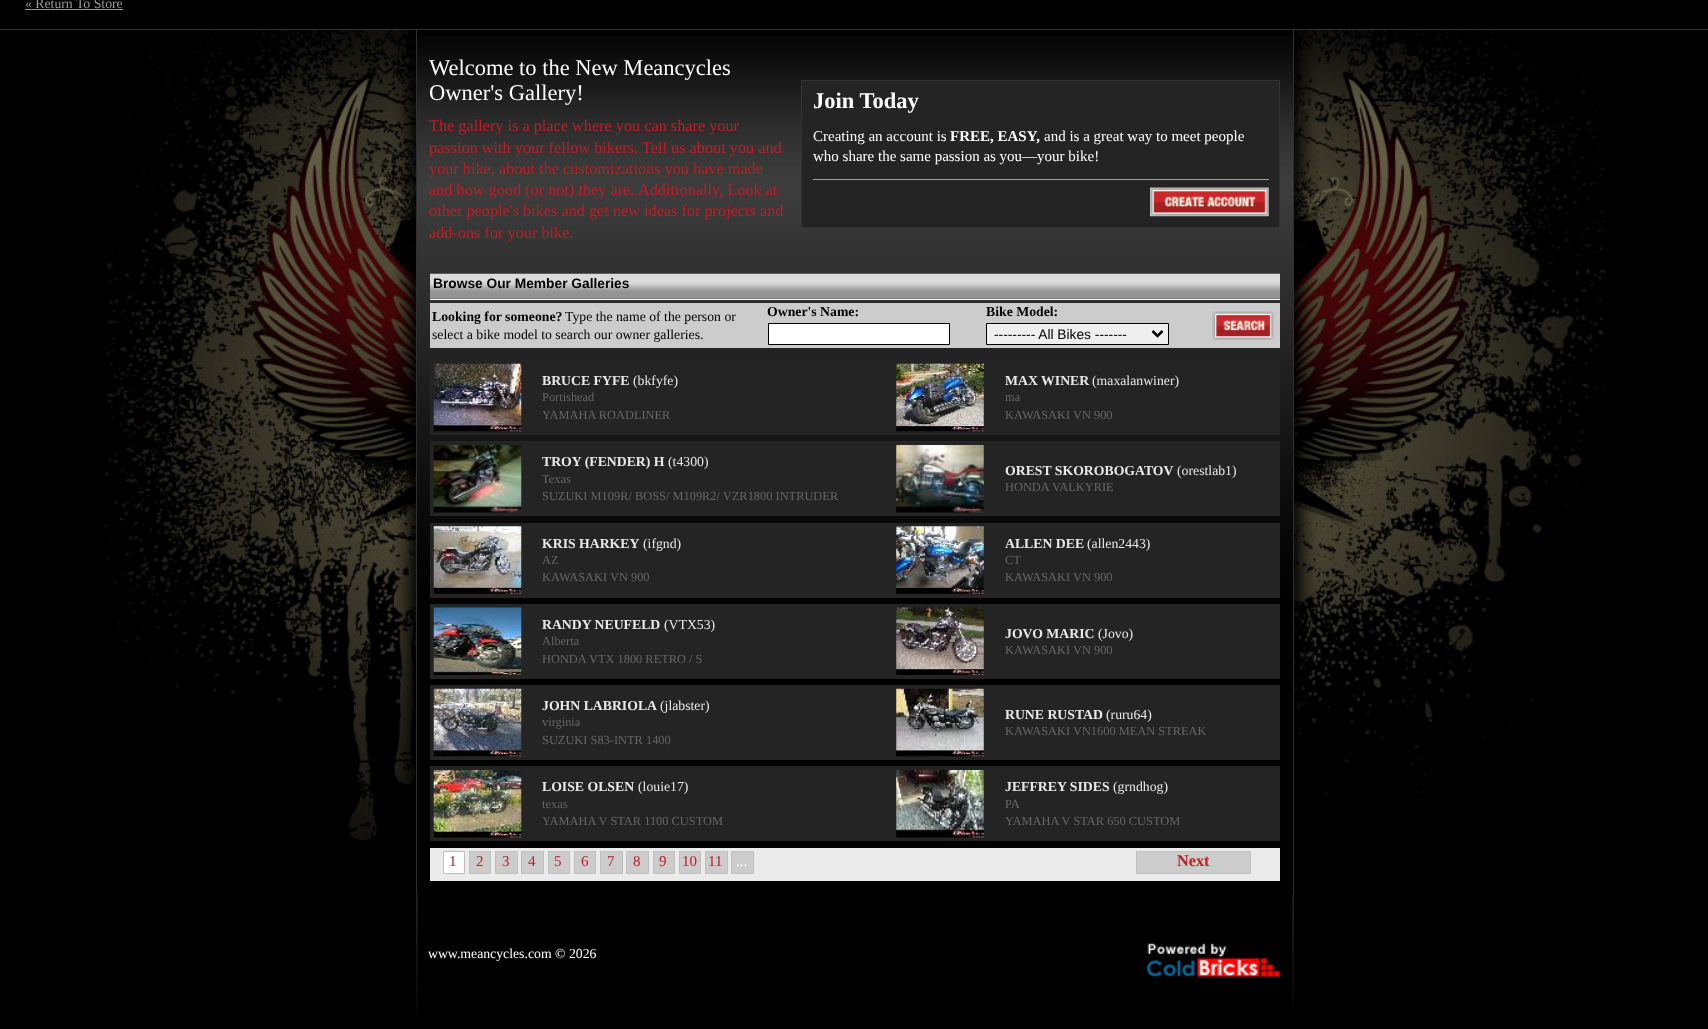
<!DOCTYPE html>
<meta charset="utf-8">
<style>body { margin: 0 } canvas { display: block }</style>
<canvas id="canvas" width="1708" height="1029"></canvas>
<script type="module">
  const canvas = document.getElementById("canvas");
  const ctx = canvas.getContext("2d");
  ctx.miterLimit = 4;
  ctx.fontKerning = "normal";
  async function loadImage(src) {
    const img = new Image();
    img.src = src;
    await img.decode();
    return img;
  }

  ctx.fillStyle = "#000000";
  ctx.fillRect(0, 0, 1708, 1029);
  ctx.drawImage(await loadImage("img1.png"), 105, 30, 1500, 810);
  ctx.fillStyle = "#333333";
  ctx.fillRect(0, 29, 1708, 1);
  ctx.font = "13.75px Liberation Serif";
  ctx.fillStyle = "#999999";
  ctx.fillText("« Return To Store", 25, 8);
  ctx.fillRect(25, 9, 98, 1);
  ctx.drawImage(await loadImage("img2.png"), 417, 35, 876, 627);
  ctx.fillStyle = "#2f2f2f";
  ctx.fillRect(1293, 30, 1, 864);
  ctx.fillRect(416, 30, 1, 864);
  ctx.font = "22.5px Liberation Serif";
  ctx.fillStyle = "#ffffff";
  ctx.fillText("Welcome to the New Meancycles", 429, 75);
  ctx.fillText("Owner's Gallery!", 429, 100);
  ctx.font = "16.25px Liberation Serif";
  ctx.fillStyle = "#bb2025";
  ctx.fillText("The gallery is a place where you can share your", 429, 131);
  ctx.fillText("passion with your fellow bikers.", 429, 153);
  ctx.fillText("Tell us about you and", 642, 153);
  ctx.fillText("your bike, about the customizations you have made", 429, 174);
  ctx.fillText("and how good (or not) they are.", 429, 195);
  ctx.fillText("Additionally, Look at", 638, 195);
  ctx.fillText("other people's bikes and get new ideas for projects and", 429, 216);
  ctx.fillText("add-ons for your bike.", 429, 238);
  ctx.fillStyle = "#242424";
  ctx.beginPath();
  ctx.rect(801.5, 80.5, 478, 147);
  ctx.fill();
  ctx.strokeStyle = "#333333";
  ctx.stroke();
  ctx.font = "bold 22.5px Liberation Serif";
  ctx.fillStyle = "#ffffff";
  ctx.fillText("Join Today", 813, 108);
  ctx.font = "15px Liberation Serif";
  ctx.fillText("Creating an account is", 813, 141);
  ctx.font = "bold 15px Liberation Serif";
  ctx.fillText("FREE, EASY,", 950, 141);
  ctx.font = "15px Liberation Serif";
  ctx.fillText("and is a great way to meet people", 1044, 141);
  ctx.fillText("who share the same passion as you—your bike!", 813, 161);
  ctx.fillStyle = "#9e9e9e";
  ctx.fillRect(813, 179, 456, 1);
  ctx.drawImage(await loadImage("img3.png"), 1150, 187, 119, 30);
  ctx.drawImage(await loadImage("img4.png"), 430, 273, 850, 26);
  ctx.fillStyle = "#ffffff";
  ctx.fillRect(430, 299, 850, 1);
  ctx.font = "bold 13.75px Liberation Sans";
  ctx.fillStyle = "#000000";
  ctx.fillText("Browse Our Member Galleries", 433, 288);
  ctx.fillStyle = "#cccccc";
  ctx.fillRect(430, 303, 850, 45);
  ctx.font = "bold 13.75px Liberation Serif";
  ctx.fillStyle = "#000000";
  ctx.fillText("Looking for someone?", 432, 321);
  ctx.font = "13.75px Liberation Serif";
  ctx.fillText("Type the name of the person or", 565, 321);
  ctx.fillText("select a bike model to search our owner galleries.", 432, 339);
  ctx.font = "bold 13.75px Liberation Serif";
  ctx.fillText("Owner's Name:", 767, 316);
  ctx.fillStyle = "#ffffff";
  ctx.beginPath();
  ctx.rect(768.5, 323.5, 181, 21);
  ctx.fill();
  ctx.strokeStyle = "#000000";
  ctx.stroke();
  ctx.fillStyle = "#000000";
  ctx.fillText("Bike Model:", 986, 316);
  ctx.fillStyle = "#efefef";
  ctx.beginPath();
  ctx.rect(986.5, 323.5, 182, 21);
  ctx.fill();
  ctx.stroke();
  ctx.beginPath();
  ctx.moveTo(1152.5, 331);
  ctx.lineTo(1157.5, 336);
  ctx.lineTo(1162.5, 331);
  ctx.lineWidth = 2.5;
  ctx.stroke();
  ctx.font = "13.75px Liberation Sans";
  ctx.fillStyle = "#000000";
  ctx.fillText("--------- All Bikes -------", 994, 339);
  ctx.drawImage(await loadImage("img5.png"), 1212, 311, 62, 29);
  ctx.fillStyle = "#242424";
  ctx.fillRect(430, 360, 850, 75);
  ctx.drawImage(await loadImage("img6.png"), 433, 363, 89, 69);
  ctx.font = "bold 13.75px Liberation Serif";
  ctx.fillStyle = "#e8e8e8";
  ctx.fillText("BRUCE FYFE", 542, 385);
  ctx.font = "13.75px Liberation Serif";
  ctx.fillText("(bkfyfe)", 633, 385);
  ctx.font = "12.4px Liberation Serif";
  ctx.fillStyle = "#666666";
  ctx.fillText("Portishead", 542, 401);
  ctx.fillText("YAMAHA ROADLINER", 542, 419);
  ctx.drawImage(await loadImage("img7.png"), 896, 363, 88, 69);
  ctx.font = "bold 13.75px Liberation Serif";
  ctx.fillStyle = "#e8e8e8";
  ctx.fillText("MAX WINER", 1005, 385);
  ctx.font = "13.75px Liberation Serif";
  ctx.fillText("(maxalanwiner)", 1092, 385);
  ctx.font = "12.4px Liberation Serif";
  ctx.fillStyle = "#666666";
  ctx.fillText("ma", 1005, 401);
  ctx.fillText("KAWASAKI VN 900", 1005, 419);
  ctx.fillStyle = "#242424";
  ctx.fillRect(430, 441, 850, 75);
  ctx.drawImage(await loadImage("img8.png"), 433, 445, 89, 68);
  ctx.font = "bold 13.75px Liberation Serif";
  ctx.fillStyle = "#e8e8e8";
  ctx.fillText("TROY (FENDER) H", 542, 466);
  ctx.font = "13.75px Liberation Serif";
  ctx.fillText("(t4300)", 668, 466);
  ctx.font = "12.4px Liberation Serif";
  ctx.fillStyle = "#666666";
  ctx.fillText("Texas", 542, 483);
  ctx.fillText("SUZUKI M109R/ BOSS/ M109R2/ VZR1800 INTRUDER", 542, 500);
  ctx.drawImage(await loadImage("img9.png"), 896, 445, 88, 68);
  ctx.font = "bold 13.75px Liberation Serif";
  ctx.fillStyle = "#e8e8e8";
  ctx.fillText("OREST SKOROBOGATOV", 1005, 475);
  ctx.font = "13.75px Liberation Serif";
  ctx.fillText("(orestlab1)", 1177, 475);
  ctx.font = "12.4px Liberation Serif";
  ctx.fillStyle = "#666666";
  ctx.fillText("HONDA VALKYRIE", 1005, 491);
  ctx.fillStyle = "#242424";
  ctx.fillRect(430, 523, 850, 75);
  ctx.drawImage(await loadImage("img10.png"), 433, 526, 89, 68);
  ctx.font = "bold 13.75px Liberation Serif";
  ctx.fillStyle = "#e8e8e8";
  ctx.fillText("KRIS HARKEY", 542, 548);
  ctx.font = "13.75px Liberation Serif";
  ctx.fillText("(ifgnd)", 643, 548);
  ctx.font = "12.4px Liberation Serif";
  ctx.fillStyle = "#666666";
  ctx.fillText("AZ", 542, 564);
  ctx.fillText("KAWASAKI VN 900", 542, 581);
  ctx.drawImage(await loadImage("img11.png"), 896, 526, 88, 68);
  ctx.font = "bold 13.75px Liberation Serif";
  ctx.fillStyle = "#e8e8e8";
  ctx.fillText("ALLEN DEE", 1005, 548);
  ctx.font = "13.75px Liberation Serif";
  ctx.fillText("(allen2443)", 1087, 548);
  ctx.font = "12.4px Liberation Serif";
  ctx.fillStyle = "#666666";
  ctx.fillText("CT", 1005, 564);
  ctx.fillText("KAWASAKI VN 900", 1005, 581);
  ctx.fillStyle = "#242424";
  ctx.fillRect(430, 604, 850, 75);
  ctx.drawImage(await loadImage("img12.png"), 433, 607, 89, 68);
  ctx.font = "bold 13.75px Liberation Serif";
  ctx.fillStyle = "#e8e8e8";
  ctx.fillText("RANDY NEUFELD", 542, 629);
  ctx.font = "13.75px Liberation Serif";
  ctx.fillText("(VTX53)", 664, 629);
  ctx.font = "12.4px Liberation Serif";
  ctx.fillStyle = "#666666";
  ctx.fillText("Alberta", 542, 645);
  ctx.fillText("HONDA VTX 1800 RETRO / S", 542, 663);
  ctx.drawImage(await loadImage("img13.png"), 896, 607, 88, 68);
  ctx.font = "bold 13.75px Liberation Serif";
  ctx.fillStyle = "#e8e8e8";
  ctx.fillText("JOVO MARIC", 1005, 638);
  ctx.font = "13.75px Liberation Serif";
  ctx.fillText("(Jovo)", 1098, 638);
  ctx.font = "12.4px Liberation Serif";
  ctx.fillStyle = "#666666";
  ctx.fillText("KAWASAKI VN 900", 1005, 654);
  ctx.fillStyle = "#242424";
  ctx.fillRect(430, 685, 850, 75);
  ctx.drawImage(await loadImage("img14.png"), 433, 688, 89, 69);
  ctx.font = "bold 13.75px Liberation Serif";
  ctx.fillStyle = "#e8e8e8";
  ctx.fillText("JOHN LABRIOLA", 542, 710);
  ctx.font = "13.75px Liberation Serif";
  ctx.fillText("(jlabster)", 660, 710);
  ctx.font = "12.4px Liberation Serif";
  ctx.fillStyle = "#666666";
  ctx.fillText("virginia", 542, 726);
  ctx.fillText("SUZUKI S83-INTR 1400", 542, 744);
  ctx.drawImage(await loadImage("img15.png"), 896, 688, 88, 69);
  ctx.font = "bold 13.75px Liberation Serif";
  ctx.fillStyle = "#e8e8e8";
  ctx.fillText("RUNE RUSTAD", 1005, 719);
  ctx.font = "13.75px Liberation Serif";
  ctx.fillText("(ruru64)", 1106, 719);
  ctx.font = "12.4px Liberation Serif";
  ctx.fillStyle = "#666666";
  ctx.fillText("KAWASAKI VN1600 MEAN STREAK", 1005, 735);
  ctx.fillStyle = "#242424";
  ctx.fillRect(430, 766, 850, 75);
  ctx.drawImage(await loadImage("img16.png"), 433, 770, 89, 68);
  ctx.font = "bold 13.75px Liberation Serif";
  ctx.fillStyle = "#e8e8e8";
  ctx.fillText("LOISE OLSEN", 542, 791);
  ctx.font = "13.75px Liberation Serif";
  ctx.fillText("(louie17)", 638, 791);
  ctx.font = "12.4px Liberation Serif";
  ctx.fillStyle = "#666666";
  ctx.fillText("texas", 542, 808);
  ctx.fillText("YAMAHA V STAR 1100 CUSTOM", 542, 825);
  ctx.drawImage(await loadImage("img17.png"), 896, 770, 88, 68);
  ctx.font = "bold 13.75px Liberation Serif";
  ctx.fillStyle = "#e8e8e8";
  ctx.fillText("JEFFREY SIDES", 1005, 791);
  ctx.font = "13.75px Liberation Serif";
  ctx.fillText("(grndhog)", 1113, 791);
  ctx.font = "12.4px Liberation Serif";
  ctx.fillStyle = "#666666";
  ctx.fillText("PA", 1005, 808);
  ctx.fillText("YAMAHA V STAR 650 CUSTOM", 1005, 825);
  ctx.fillStyle = "#ebebeb";
  ctx.fillRect(430, 848, 850, 33);
  ctx.fillStyle = "#ffffff";
  ctx.beginPath();
  ctx.rect(443.5, 851.5, 21, 22);
  ctx.fill();
  ctx.strokeStyle = "#c0c0c0";
  ctx.lineWidth = 1;
  ctx.stroke();
  ctx.font = "15px Liberation Serif";
  ctx.fillStyle = "#bb2025";
  ctx.fillText("1", 449, 866);
  ctx.fillStyle = "#cccccc";
  ctx.beginPath();
  ctx.rect(469.5, 851.5, 21, 22);
  ctx.fill();
  ctx.stroke();
  ctx.fillStyle = "#bb2025";
  ctx.fillText("2", 476, 866);
  ctx.fillStyle = "#cccccc";
  ctx.beginPath();
  ctx.rect(495.5, 851.5, 22, 22);
  ctx.fill();
  ctx.stroke();
  ctx.fillStyle = "#bb2025";
  ctx.fillText("3", 502, 866);
  ctx.fillStyle = "#cccccc";
  ctx.beginPath();
  ctx.rect(521.5, 851.5, 22, 22);
  ctx.fill();
  ctx.stroke();
  ctx.fillStyle = "#bb2025";
  ctx.fillText("4", 528, 866);
  ctx.fillStyle = "#cccccc";
  ctx.beginPath();
  ctx.rect(548.5, 851.5, 21, 22);
  ctx.fill();
  ctx.stroke();
  ctx.fillStyle = "#bb2025";
  ctx.fillText("5", 554, 866);
  ctx.fillStyle = "#cccccc";
  ctx.beginPath();
  ctx.rect(574.5, 851.5, 21, 22);
  ctx.fill();
  ctx.stroke();
  ctx.fillStyle = "#bb2025";
  ctx.fillText("6", 581, 866);
  ctx.fillStyle = "#cccccc";
  ctx.beginPath();
  ctx.rect(600.5, 851.5, 22, 22);
  ctx.fill();
  ctx.stroke();
  ctx.fillStyle = "#bb2025";
  ctx.fillText("7", 607, 866);
  ctx.fillStyle = "#cccccc";
  ctx.beginPath();
  ctx.rect(626.5, 851.5, 22, 22);
  ctx.fill();
  ctx.stroke();
  ctx.fillStyle = "#bb2025";
  ctx.fillText("8", 633, 866);
  ctx.fillStyle = "#cccccc";
  ctx.beginPath();
  ctx.rect(653.5, 851.5, 21, 22);
  ctx.fill();
  ctx.stroke();
  ctx.fillStyle = "#bb2025";
  ctx.fillText("9", 659, 866);
  ctx.fillStyle = "#cccccc";
  ctx.beginPath();
  ctx.rect(679.5, 851.5, 21, 22);
  ctx.fill();
  ctx.stroke();
  ctx.fillStyle = "#bb2025";
  ctx.fillText("10", 682, 866);
  ctx.fillStyle = "#cccccc";
  ctx.beginPath();
  ctx.rect(705.5, 851.5, 22, 22);
  ctx.fill();
  ctx.stroke();
  ctx.fillStyle = "#bb2025";
  ctx.fillText("11", 708, 866);
  ctx.fillStyle = "#cccccc";
  ctx.beginPath();
  ctx.rect(731.5, 851.5, 22, 22);
  ctx.fill();
  ctx.stroke();
  ctx.fillStyle = "#ffffff";
  ctx.fillText("...", 736, 866);
  ctx.fillStyle = "#cccccc";
  ctx.beginPath();
  ctx.rect(1136.5, 851.5, 114, 22);
  ctx.fill();
  ctx.stroke();
  ctx.font = "bold 16.25px Liberation Serif";
  ctx.fillStyle = "#bb2025";
  ctx.fillText("Next", 1177, 866);
  ctx.drawImage(await loadImage("img18.png"), 416, 893, 878, 121);
  ctx.font = "13.75px Liberation Serif";
  ctx.fillStyle = "#ffffff";
  ctx.fillText("www.meancycles.com © 2026", 428, 958);
  ctx.drawImage(await loadImage("img19.png"), 1146, 943, 135, 35);
</script>
